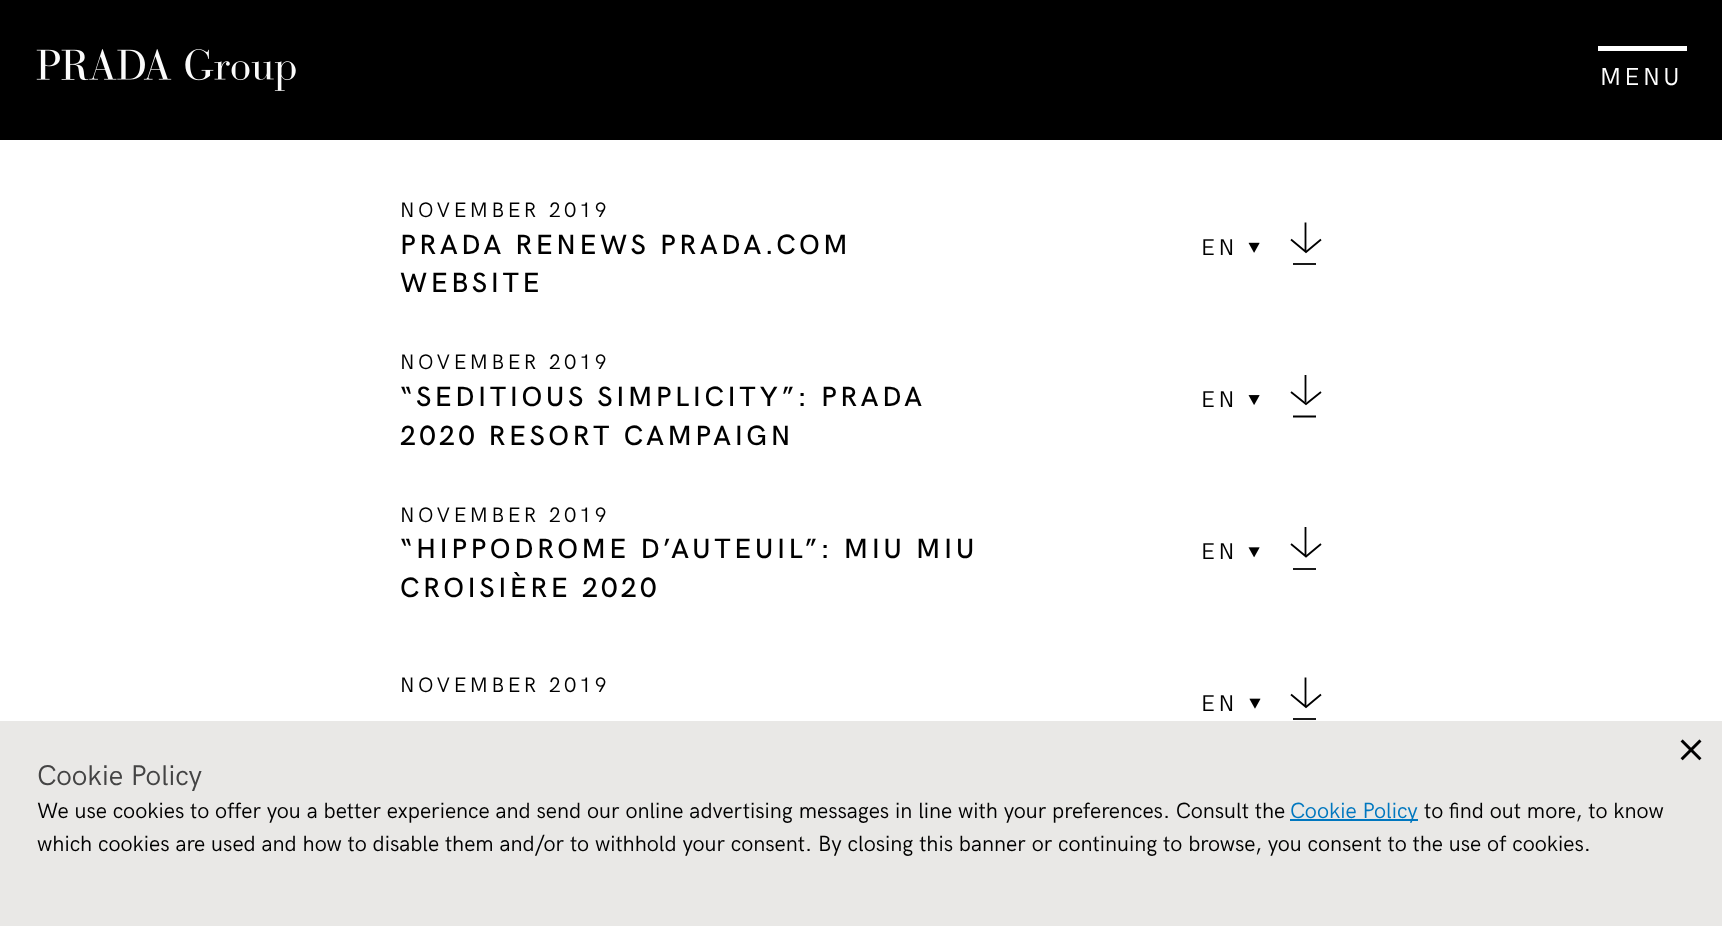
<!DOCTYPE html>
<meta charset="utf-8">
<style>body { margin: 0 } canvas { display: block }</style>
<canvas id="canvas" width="1722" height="926"></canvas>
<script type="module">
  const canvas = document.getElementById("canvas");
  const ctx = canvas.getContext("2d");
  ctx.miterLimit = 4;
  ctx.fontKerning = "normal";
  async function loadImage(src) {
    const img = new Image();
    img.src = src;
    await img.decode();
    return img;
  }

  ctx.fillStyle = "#ffffff";
  ctx.fillRect(0, 0, 1722, 926);
  ctx.fillStyle = "#000000";
  ctx.fillRect(0, 0, 1722, 140);
  ctx.drawImage(await loadImage("img1.png"), 36, 49, 260, 42);
  ctx.fillStyle = "#ffffff";
  ctx.fillRect(1598, 46, 89, 5);
  ctx.letterSpacing = "3.5px";
  ctx.font = "24.5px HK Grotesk";
  ctx.fillText("MENU", 1600, 85);
  ctx.font = "21px HK Grotesk";
  ctx.fillStyle = "#000000";
  ctx.fillText("NOVEMBER 2019", 400, 217);
  ctx.font = "500 28px HK Grotesk";
  ctx.fillText("PRADA RENEWS PRADA.COM", 400, 254);
  ctx.fillText("WEBSITE", 400, 292);
  ctx.font = "23px HK Grotesk";
  ctx.fillText("EN", 1201, 255);
  ctx.drawImage(await loadImage("img2.png"), 1248, 242, 12, 11);
  ctx.fillStyle = "#1a1a1a";
  ctx.fillRect(1293, 263, 23, 2);
  ctx.beginPath();
  ctx.moveTo(1321, 239.5);
  ctx.lineTo(1306, 252);
  ctx.lineTo(1291, 239.5);
  ctx.moveTo(1305.5, 250.5);
  ctx.lineTo(1305.5, 222.5);
  ctx.strokeStyle = "#000000";
  ctx.lineWidth = 1.8;
  ctx.stroke();
  ctx.font = "21px HK Grotesk";
  ctx.fillStyle = "#000000";
  ctx.fillText("NOVEMBER 2019", 400, 369);
  ctx.font = "500 28px HK Grotesk";
  ctx.fillText("“SEDITIOUS SIMPLICITY”: PRADA", 400, 406);
  ctx.fillText("2020 RESORT CAMPAIGN", 400, 445);
  ctx.font = "23px HK Grotesk";
  ctx.fillText("EN", 1201, 407);
  ctx.drawImage(await loadImage("img3.png"), 1248, 395, 12, 10);
  ctx.beginPath();
  ctx.moveTo(1293, 416.5);
  ctx.lineTo(1316, 416.5);
  ctx.moveTo(1321, 392);
  ctx.lineTo(1306, 404);
  ctx.lineTo(1291, 392);
  ctx.stroke();
  ctx.save();
  ctx.beginPath();
  ctx.rect(1290, 375, 31, 43);
  ctx.clip();
  ctx.beginPath();
  ctx.moveTo(1305.5, 402.5);
  ctx.lineTo(1305.5, 374.5);
  ctx.stroke();
  ctx.restore();
  ctx.font = "21px HK Grotesk";
  ctx.fillText("NOVEMBER 2019", 400, 522);
  ctx.font = "500 28px HK Grotesk";
  ctx.fillText("“HIPPODROME D’AUTEUIL”: MIU MIU", 400, 558);
  ctx.fillText("CROISIÈRE 2020", 400, 597);
  ctx.font = "23px HK Grotesk";
  ctx.fillText("EN", 1201, 559);
  ctx.drawImage(await loadImage("img4.png"), 1248, 547, 12, 11);
  ctx.fillStyle = "#1a1a1a";
  ctx.fillRect(1293, 568, 23, 2);
  ctx.beginPath();
  ctx.moveTo(1321, 544);
  ctx.lineTo(1306, 556.5);
  ctx.lineTo(1291, 544);
  ctx.moveTo(1305.5, 555);
  ctx.lineTo(1305.5, 527);
  ctx.stroke();
  ctx.font = "21px HK Grotesk";
  ctx.fillStyle = "#000000";
  ctx.fillText("NOVEMBER 2019", 400, 692);
  ctx.font = "23px HK Grotesk";
  ctx.fillText("EN", 1201, 711);
  ctx.drawImage(await loadImage("img5.png"), 1249, 698, 12, 11);
  ctx.fillStyle = "#1a1a1a";
  ctx.fillRect(1293, 718, 23, 2);
  ctx.beginPath();
  ctx.moveTo(1321, 694.5);
  ctx.lineTo(1306, 707);
  ctx.lineTo(1291, 694.5);
  ctx.moveTo(1305.5, 705.5);
  ctx.lineTo(1305.5, 677.5);
  ctx.stroke();
  ctx.fillStyle = "#e9e8e6";
  ctx.fillRect(0, 721, 1722, 205);
  ctx.drawImage(await loadImage("img6.png"), 1680, 739, 22, 22);
  ctx.letterSpacing = "0px";
  ctx.font = "28.5px HK Grotesk";
  ctx.fillStyle = "#444444";
  ctx.fillText("Cookie Policy", 37, 785);
  ctx.font = "22.05px HK Grotesk";
  ctx.fillStyle = "#000000";
  ctx.fillText("We use cookies to offer you a better experience and send our online advertising messages in line with your preferences. Consult the", 37, 818);
  ctx.fillStyle = "#0077bf";
  ctx.fillRect(1290, 819, 128, 2);
  ctx.fillText("Cookie Policy", 1290, 818);
  ctx.fillStyle = "#000000";
  ctx.fillText("to find out more, to know", 1424, 818);
  ctx.fillText("which cookies are used and how to disable them and/or to withhold your consent. By closing this banner or continuing to browse, you consent to the use of cookies.", 37, 851);
</script>
